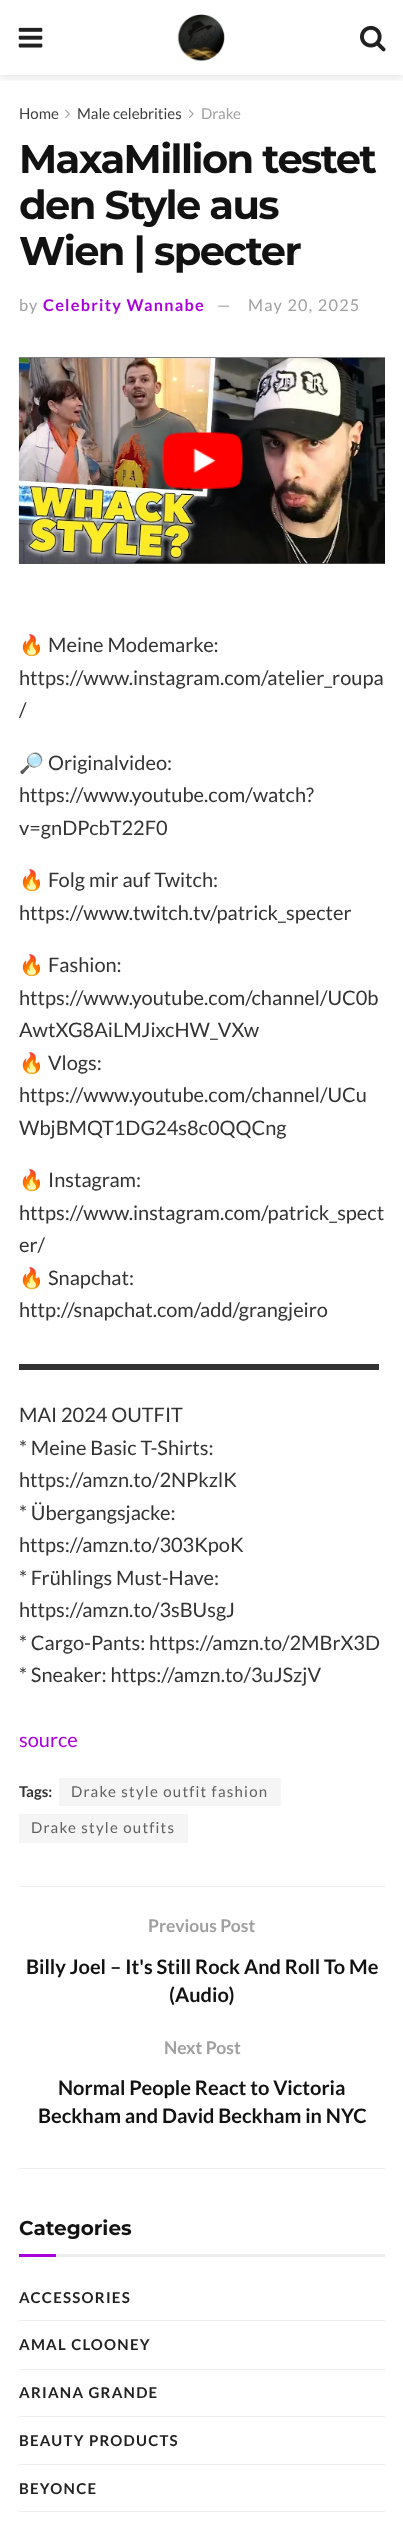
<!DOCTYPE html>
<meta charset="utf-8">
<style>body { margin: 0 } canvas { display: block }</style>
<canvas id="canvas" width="403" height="2521"></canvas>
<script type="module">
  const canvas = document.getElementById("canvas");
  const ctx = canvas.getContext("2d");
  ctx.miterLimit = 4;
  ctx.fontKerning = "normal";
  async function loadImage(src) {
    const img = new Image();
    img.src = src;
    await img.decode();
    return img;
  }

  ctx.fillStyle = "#ffffff";
  ctx.fillRect(0, 0, 403, 2521);
  ctx.save();
  ctx.beginPath();
  ctx.rect(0, 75, 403, 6);
  ctx.clip();
  ctx.fillStyle = "rgba(0, 0, 0, 0.1)";
  ctx.filter = "blur(4px)";
  ctx.beginPath();
  ctx.rect(0, 3, 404, 75);
  ctx.fill();
  ctx.filter = "none";
  ctx.restore();
  ctx.drawImage(await loadImage("img1.png"), 18, 27, 25, 21);
  ctx.drawImage(await loadImage("img2.png"), 177, 14, 48, 48);
  ctx.drawImage(await loadImage("img3.png"), 360, 25, 26, 27);
  ctx.font = "15px Lato";
  ctx.fillStyle = "#3d3d3d";
  ctx.fillText("Home", 19, 119);
  ctx.drawImage(await loadImage("img4.png"), 65, 109, 5, 9);
  ctx.fillText("Male celebrities", 77, 119);
  ctx.drawImage(await loadImage("img5.png"), 188, 109, 6, 9);
  ctx.fillStyle = "#a0a0a0";
  ctx.fillText("Drake", 201, 119);
  ctx.letterSpacing = "-1.6px";
  ctx.font = "bold 40px Montserrat";
  ctx.fillStyle = "#121212";
  ctx.fillText("MaxaMillion testet", 19, 173);
  ctx.fillText("den Style aus", 19, 219);
  ctx.fillText("Wien | specter", 19, 265);
  ctx.letterSpacing = "1.25px";
  ctx.font = "16.25px Lato";
  ctx.fillStyle = "#a0a0a0";
  ctx.fillText("by", 19, 311);
  ctx.font = "bold 16.25px Lato";
  ctx.fillStyle = "#aa00dd";
  ctx.fillText("Celebrity Wannabe", 43, 311);
  ctx.font = "16.25px Lato";
  ctx.fillStyle = "#a0a0a0";
  ctx.fillText("—", 217, 311);
  ctx.fillText("May 20, 2025", 248, 311);
  ctx.drawImage(await loadImage("img6.png"), 18, 357, 367, 207);
  ctx.drawImage(await loadImage("img7.png"), 162, 432, 81, 57);
  ctx.letterSpacing = "0px";
  ctx.font = "20px Noto Color Emoji";
  ctx.fillStyle = "#333333";
  ctx.fillText("🔥", 19, 652);
  ctx.font = "20px Lato";
  ctx.fillText("Meine Modemarke:", 48, 652);
  ctx.fillText("https://www.instagram.com/atelier_roupa", 19, 685);
  ctx.fillText("/", 19, 717);
  ctx.font = "20px Noto Color Emoji";
  ctx.fillText("🔎", 19, 770);
  ctx.font = "20px Lato";
  ctx.fillText("Originalvideo:", 48, 770);
  ctx.fillText("https://www.youtube.com/watch?", 19, 802);
  ctx.fillText("v=gnDPcbT22F0", 19, 835);
  ctx.font = "20px Noto Color Emoji";
  ctx.fillText("🔥", 19, 887);
  ctx.font = "20px Lato";
  ctx.fillText("Folg mir auf Twitch:", 48, 887);
  ctx.fillText("https://www.twitch.tv/patrick_specter", 19, 920);
  ctx.font = "20px Noto Color Emoji";
  ctx.fillText("🔥", 19, 972);
  ctx.font = "20px Lato";
  ctx.fillText("Fashion:", 48, 972);
  ctx.fillText("https://www.youtube.com/channel/UC0b", 19, 1005);
  ctx.fillText("AwtXG8AiLMJixcHW_VXw", 19, 1037);
  ctx.font = "20px Noto Color Emoji";
  ctx.fillText("🔥", 19, 1070);
  ctx.font = "20px Lato";
  ctx.fillText("Vlogs:", 48, 1070);
  ctx.fillText("https://www.youtube.com/channel/UCu", 19, 1102);
  ctx.fillText("WbjBMQT1DG24s8c0QQCng", 19, 1135);
  ctx.font = "20px Noto Color Emoji";
  ctx.fillText("🔥", 19, 1187);
  ctx.font = "20px Lato";
  ctx.fillText("Instagram:", 48, 1187);
  ctx.fillText("https://www.instagram.com/patrick_spect", 19, 1220);
  ctx.fillText("er/", 19, 1252);
  ctx.font = "20px Noto Color Emoji";
  ctx.fillText("🔥", 19, 1285);
  ctx.font = "20px Lato";
  ctx.fillText("Snapchat:", 48, 1285);
  ctx.fillText("http://snapchat.com/add/grangjeiro", 19, 1317);
  ctx.font = "20px Liberation Sans";
  ctx.fillText("▬▬▬▬▬▬▬▬▬▬▬▬▬▬▬▬▬▬", 19, 1370);
  ctx.font = "20px Lato";
  ctx.fillText("MAI 2024 OUTFIT", 19, 1422);
  ctx.fillText("* Meine Basic T-Shirts:", 19, 1455);
  ctx.fillText("https://amzn.to/2NPkzlK", 19, 1487);
  ctx.fillText("* Übergangsjacke:", 19, 1520);
  ctx.fillText("https://amzn.to/303KpoK", 19, 1552);
  ctx.fillText("* Frühlings Must-Have:", 19, 1585);
  ctx.fillText("https://amzn.to/3sBUsgJ", 19, 1617);
  ctx.fillText("* Cargo-Pants: https://amzn.to/2MBrX3D", 19, 1650);
  ctx.fillText("* Sneaker: https://amzn.to/3uJSzjV", 19, 1682);
  ctx.fillStyle = "#aa00dd";
  ctx.fillText("source", 19, 1747);
  ctx.font = "bold 15px Lato";
  ctx.fillStyle = "#333333";
  ctx.fillText("Tags:", 19, 1797);
  ctx.fillStyle = "#f5f5f5";
  ctx.fillRect(59, 1778, 222, 28);
  ctx.letterSpacing = "1.25px";
  ctx.font = "15px Lato";
  ctx.fillStyle = "#616161";
  ctx.fillText("Drake style outfit fashion", 71, 1797);
  ctx.fillStyle = "#f5f5f5";
  ctx.fillRect(19, 1814, 169, 29);
  ctx.fillStyle = "#616161";
  ctx.fillText("Drake style outfits", 31, 1833);
  ctx.fillStyle = "#eeeeee";
  ctx.fillRect(19, 1886, 366, 1);
  ctx.fillRect(19, 2168, 366, 1);
  ctx.letterSpacing = "0px";
  ctx.font = "bold 17.5px Lato";
  ctx.fillStyle = "#a0a0a0";
  ctx.fillText("Previous Post", 148, 1932);
  ctx.font = "bold 20px Lato";
  ctx.fillStyle = "#121212";
  ctx.fillText("Billy Joel – It's Still Rock And Roll To Me", 26, 1974);
  ctx.fillText("(Audio)", 169, 2002);
  ctx.font = "bold 17.5px Lato";
  ctx.fillStyle = "#a0a0a0";
  ctx.fillText("Next Post", 164, 2054);
  ctx.font = "bold 20px Lato";
  ctx.fillStyle = "#121212";
  ctx.fillText("Normal People React to Victoria", 58, 2095);
  ctx.fillText("Beckham and David Beckham in NYC", 38, 2123);
  ctx.fillStyle = "#eeeeee";
  ctx.fillRect(56, 2254, 329, 3);
  ctx.font = "bold 20px Montserrat";
  ctx.fillStyle = "#121212";
  ctx.fillText("Categories", 19, 2235);
  ctx.fillStyle = "#aa00dd";
  ctx.fillRect(19, 2254, 37, 3);
  ctx.letterSpacing = "1.25px";
  ctx.font = "bold 15px Lato";
  ctx.fillStyle = "#212121";
  ctx.fillText("ACCESSORIES", 19, 2303);
  ctx.fillStyle = "#eeeeee";
  ctx.fillRect(19, 2320, 366, 1);
  ctx.fillStyle = "#212121";
  ctx.fillText("AMAL CLOONEY", 19, 2350);
  ctx.fillStyle = "#eeeeee";
  ctx.fillRect(19, 2369, 366, 1);
  ctx.fillStyle = "#212121";
  ctx.fillText("ARIANA GRANDE", 19, 2398);
  ctx.fillStyle = "#eeeeee";
  ctx.fillRect(19, 2416, 366, 1);
  ctx.fillStyle = "#212121";
  ctx.fillText("BEAUTY PRODUCTS", 19, 2446);
  ctx.fillStyle = "#eeeeee";
  ctx.fillRect(19, 2464, 366, 1);
  ctx.fillStyle = "#212121";
  ctx.fillText("BEYONCE", 19, 2494);
  ctx.fillStyle = "#eeeeee";
  ctx.fillRect(19, 2511, 366, 1);
</script>
